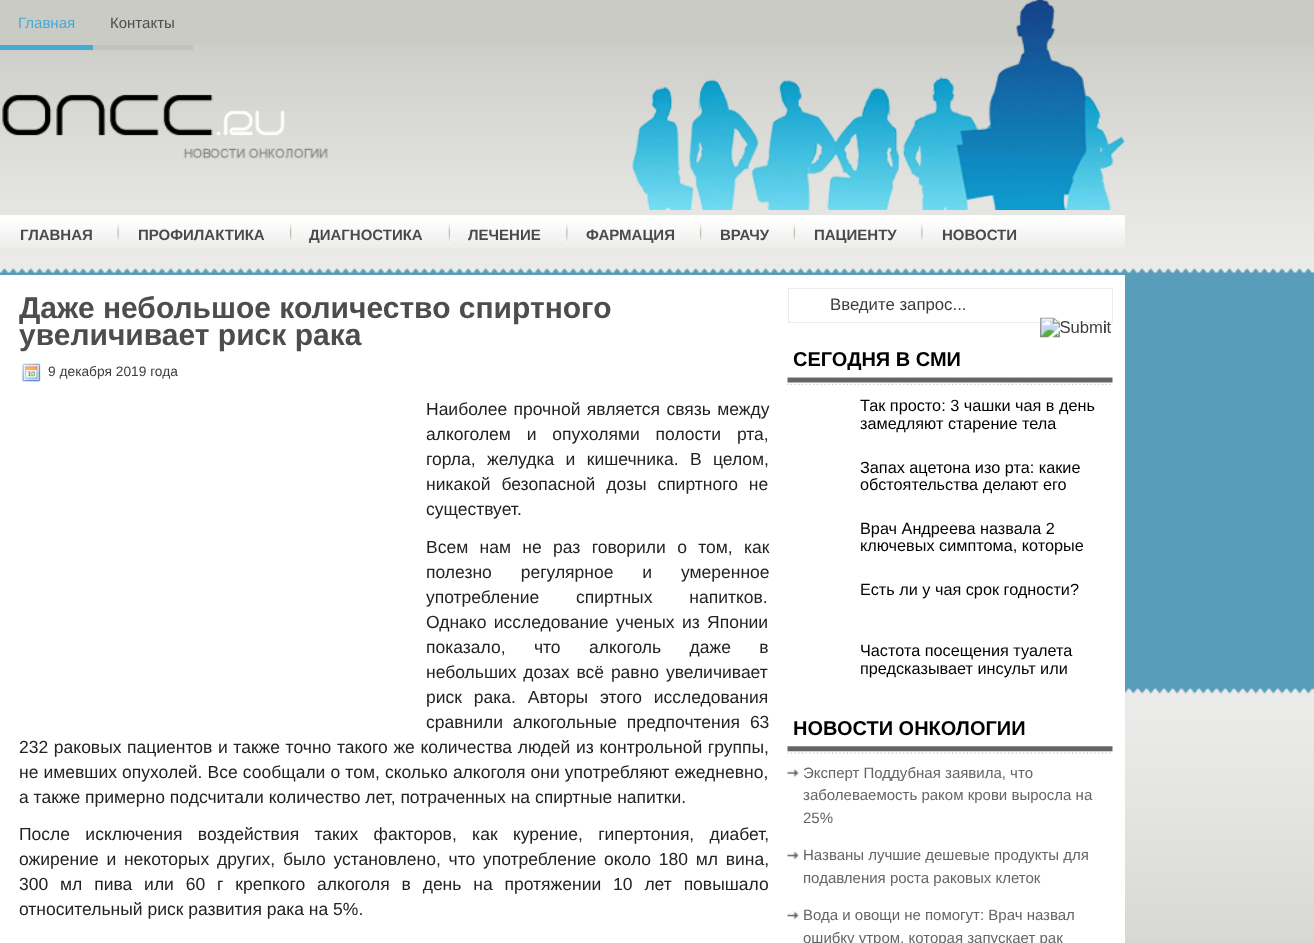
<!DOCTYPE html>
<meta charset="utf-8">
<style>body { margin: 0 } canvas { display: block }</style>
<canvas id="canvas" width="1314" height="943"></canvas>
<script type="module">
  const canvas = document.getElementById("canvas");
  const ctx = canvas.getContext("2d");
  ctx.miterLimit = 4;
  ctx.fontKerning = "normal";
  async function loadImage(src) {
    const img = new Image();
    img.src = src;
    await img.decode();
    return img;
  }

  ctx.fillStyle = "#cacbc5";
  ctx.fillRect(0, 0, 1314, 943);
  ctx.drawImage(await loadImage("img1.png"), 0, 45, 1314, 898);
  ctx.drawImage(await loadImage("img2.png"), 632, 0, 493, 210);
  ctx.fillStyle = "#47aad4";
  ctx.fillRect(0, 45, 93, 5);
  ctx.font = "15px Liberation Sans";
  ctx.fillText("Главная", 18, 28);
  ctx.fillStyle = "#c1c2bb";
  ctx.fillRect(93, 45, 100, 5);
  ctx.fillStyle = "#4e4d4d";
  ctx.fillText("Контакты", 110, 28);
  ctx.drawImage(await loadImage("img3.png"), 2, 94, 326, 65);
  ctx.drawImage(await loadImage("img4.png"), 0, 215, 1125, 33);
  ctx.font = "bold 15px Liberation Sans";
  ctx.fillStyle = "#484b4c";
  ctx.fillText("ГЛАВНАЯ", 20, 240);
  ctx.drawImage(await loadImage("img5.png"), 117, 224, 2, 20);
  ctx.fillText("ПРОФИЛАКТИКА", 138, 240);
  ctx.drawImage(await loadImage("img6.png"), 290, 224, 2, 20);
  ctx.fillText("ДИАГНОСТИКА", 309, 240);
  ctx.drawImage(await loadImage("img7.png"), 448, 224, 2, 20);
  ctx.fillText("ЛЕЧЕНИЕ", 468, 240);
  ctx.drawImage(await loadImage("img8.png"), 566, 224, 2, 20);
  ctx.fillText("ФАРМАЦИЯ", 586, 240);
  ctx.drawImage(await loadImage("img6.png"), 700, 224, 2, 20);
  ctx.fillText("ВРАЧУ", 720, 240);
  ctx.drawImage(await loadImage("img7.png"), 793, 224, 2, 20);
  ctx.fillText("ПАЦИЕНТУ", 814, 240);
  ctx.drawImage(await loadImage("img8.png"), 921, 224, 2, 20);
  ctx.fillText("НОВОСТИ", 942, 240);
  ctx.fillStyle = "#ffffff";
  ctx.fillRect(0, 275, 1125, 668);
  ctx.font = "bold 30px Liberation Sans";
  ctx.fillStyle = "#4e4d4d";
  ctx.fillText("Даже небольшое количество спиртного", 19, 318);
  ctx.fillText("увеличивает риск рака", 19, 345);
  ctx.drawImage(await loadImage("img9.png"), 22, 363, 19, 19);
  ctx.font = "13.75px Liberation Sans";
  ctx.fillStyle = "#3e3c3c";
  ctx.fillText("9 декабря 2019 года", 48, 376);
  ctx.wordSpacing = "1.5px";
  ctx.font = "17.5px Liberation Sans";
  ctx.fillStyle = "#222222";
  ctx.fillText("Наиболее прочной является связь между", 426, 415);
  ctx.wordSpacing = "11px";
  ctx.fillText("алкоголем и опухолями полости рта,", 426, 440);
  ctx.wordSpacing = "6.5px";
  ctx.fillText("горла, желудка и кишечника. В целом,", 426, 465);
  ctx.wordSpacing = "6px";
  ctx.fillText("никакой безопасной дозы спиртного не", 426, 490);
  ctx.wordSpacing = "0px";
  ctx.fillText("существует.", 426, 515);
  ctx.wordSpacing = "6.5px";
  ctx.fillText("Всем нам не раз говорили о том, как", 426, 553);
  ctx.wordSpacing = "24px";
  ctx.fillText("полезно регулярное и умеренное", 426, 578);
  ctx.wordSpacing = "32px";
  ctx.fillText("употребление спиртных напитков.", 426, 603);
  ctx.wordSpacing = "2.5px";
  ctx.fillText("Однако исследование ученых из Японии", 426, 628);
  ctx.wordSpacing = "23.5px";
  ctx.fillText("показало, что алкоголь даже в", 426, 653);
  ctx.wordSpacing = "2px";
  ctx.fillText("небольших дозах всё равно увеличивает", 426, 678);
  ctx.wordSpacing = "7px";
  ctx.fillText("риск рака. Авторы этого исследования", 426, 703);
  ctx.wordSpacing = "5px";
  ctx.fillText("сравнили алкогольные предпочтения 63", 426, 728);
  ctx.wordSpacing = "0.75px";
  ctx.fillText("232 раковых пациентов и также точно такого же количества людей из контрольной группы,", 19, 753);
  ctx.wordSpacing = "0.25px";
  ctx.fillText("не имевших опухолей. Все сообщали о том, сколько алкоголя они употребляют ежедневно,", 19, 778);
  ctx.wordSpacing = "0px";
  ctx.fillText("а также примерно подсчитали количество лет, потраченных на спиртные напитки.", 19, 803);
  ctx.wordSpacing = "10.5px";
  ctx.fillText("После исключения воздействия таких факторов, как курение, гипертония, диабет,", 19, 840);
  ctx.wordSpacing = "2.9px";
  ctx.fillText("ожирение и некоторых других, было установлено, что употребление около 180 мл вина,", 19, 865);
  ctx.wordSpacing = "7px";
  ctx.fillText("300 мл пива или 60 г крепкого алкоголя в день на протяжении 10 лет повышало", 19, 890);
  ctx.wordSpacing = "0px";
  ctx.fillText("относительный риск развития рака на 5%.", 19, 915);
  ctx.strokeStyle = "#edecec";
  ctx.strokeRect(788.5, 288.5, 324, 34);
  ctx.font = "16.75px Liberation Sans";
  ctx.fillStyle = "#3e3c3c";
  ctx.fillText("Введите запрос...", 830, 310);
  ctx.drawImage(await loadImage("img10.png"), 1040, 317, 71, 21);
  ctx.fillText("i", 1103, 333);
  ctx.drawImage(await loadImage("img11.png"), 787, 377, 326, 8);
  ctx.font = "bold 20px Liberation Sans";
  ctx.fillStyle = "#000000";
  ctx.fillText("СЕГОДНЯ В СМИ", 793, 366);
  ctx.font = "16.25px Liberation Sans";
  ctx.fillText("Так просто: 3 чашки чая в день", 860, 411);
  ctx.fillText("замедляют старение тела", 860, 429);
  ctx.fillText("Запах ацетона изо рта: какие", 860, 473);
  ctx.fillText("обстоятельства делают его", 860, 490);
  ctx.fillText("Врач Андреева назвала 2", 860, 534);
  ctx.fillText("ключевых симптома, которые", 860, 551);
  ctx.fillText("Есть ли у чая срок годности?", 860, 595);
  ctx.fillText("Частота посещения туалета", 860, 656);
  ctx.fillText("предсказывает инсульт или", 860, 674);
  ctx.drawImage(await loadImage("img12.png"), 787, 746, 326, 8);
  ctx.font = "bold 20px Liberation Sans";
  ctx.fillText("НОВОСТИ ОНКОЛОГИИ", 793, 735);
  ctx.drawImage(await loadImage("img13.png"), 787, 768, 12, 10);
  ctx.font = "15px Liberation Sans";
  ctx.fillStyle = "#686363";
  ctx.fillText("Эксперт Поддубная заявила, что", 803, 778);
  ctx.fillText("заболеваемость раком крови выросла на", 803, 800);
  ctx.fillText("25%", 803, 823);
  ctx.drawImage(await loadImage("img14.png"), 787, 851, 12, 9);
  ctx.fillText("Названы лучшие дешевые продукты для", 803, 860);
  ctx.fillText("подавления роста раковых клеток", 803, 883);
  ctx.drawImage(await loadImage("img14.png"), 787, 911, 12, 9);
  ctx.fillText("Вода и овощи не помогут: Врач назвал", 803, 920);
  ctx.fillText("ошибку утром, которая запускает рак", 803, 943);
</script>
